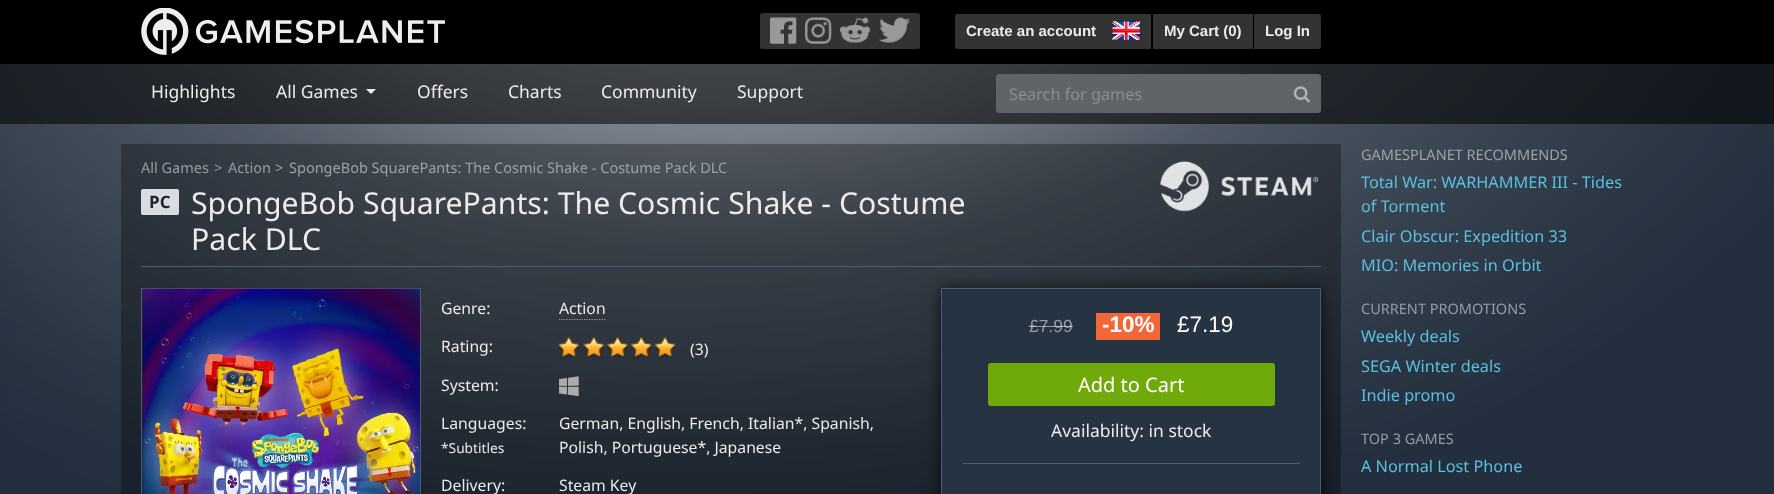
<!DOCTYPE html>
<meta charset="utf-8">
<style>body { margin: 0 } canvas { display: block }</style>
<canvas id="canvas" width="1774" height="494"></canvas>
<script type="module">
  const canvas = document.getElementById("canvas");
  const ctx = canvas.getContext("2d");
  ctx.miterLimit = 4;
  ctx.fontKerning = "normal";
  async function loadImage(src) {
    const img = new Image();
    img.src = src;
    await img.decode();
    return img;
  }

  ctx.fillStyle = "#232f3e";
  ctx.fillRect(0, 0, 1774, 494);
  ctx.drawImage(await loadImage("img1.png"), 0, 64, 1774, 430);
  ctx.fillStyle = "#000000";
  ctx.fillRect(0, 0, 1774, 64);
  ctx.drawImage(await loadImage("img2.png"), 141, 8, 304, 47);
  ctx.fillStyle = "#333333";
  ctx.beginPath();
  ctx.roundRect(760, 13, 41, 36, [2.5, 0, 0, 2.5]);
  ctx.fill();
  ctx.drawImage(await loadImage("img3.png"), 770, 17, 27, 27);
  ctx.fillRect(801, 13, 73, 36);
  ctx.drawImage(await loadImage("img4.png"), 805, 17, 27, 27);
  ctx.beginPath();
  ctx.roundRect(874, 13, 46, 36, [0, 2.5, 2.5, 0]);
  ctx.fill();
  ctx.drawImage(await loadImage("img5.png"), 879, 17, 31, 26);
  ctx.drawImage(await loadImage("img6.png"), 840, 17, 30, 26);
  ctx.beginPath();
  ctx.roundRect(955, 14, 153, 35, [2.5, 0, 0, 2.5]);
  ctx.fill();
  ctx.font = "bold 15px Liberation Sans";
  ctx.fillStyle = "#ebebeb";
  ctx.fillText("Create an account", 966, 36);
  ctx.fillStyle = "#333333";
  ctx.fillRect(1108, 14, 43, 35);
  ctx.drawImage(await loadImage("img7.png"), 1112, 21, 28, 19);
  ctx.fillRect(1153, 14, 100, 35);
  ctx.fillStyle = "#ebebeb";
  ctx.fillText("My Cart (0)", 1164, 36);
  ctx.fillStyle = "#333333";
  ctx.beginPath();
  ctx.roundRect(1254, 14, 67, 35, [0, 2.5, 2.5, 0]);
  ctx.fill();
  ctx.fillStyle = "#ebebeb";
  ctx.fillText("Log In", 1265, 36);
  ctx.fillStyle = "rgba(0, 0, 0, 0.55)";
  ctx.fillRect(0, 64, 1774, 60);
  ctx.font = "17.5px Noto Sans";
  ctx.fillStyle = "#ebebeb";
  ctx.fillText("Highlights", 151, 98);
  ctx.fillText("All Games", 276, 98);
  ctx.beginPath();
  ctx.moveTo(366, 89);
  ctx.lineTo(376, 89);
  ctx.lineTo(371, 94);
  ctx.closePath();
  ctx.fill();
  ctx.fillText("Offers", 417, 98);
  ctx.fillText("Charts", 508, 98);
  ctx.fillText("Community", 601, 98);
  ctx.fillText("Support", 737, 98);
  ctx.fillStyle = "#5f6468";
  ctx.beginPath();
  ctx.roundRect(996.5, 74.5, 287, 38, [2, 0, 0, 2]);
  ctx.fill();
  ctx.strokeStyle = "#5f6468";
  ctx.stroke();
  ctx.font = "16.25px Noto Sans";
  ctx.fillStyle = "#868e96";
  ctx.fillText("Search for games", 1009, 100);
  ctx.fillStyle = "#5f6468";
  ctx.beginPath();
  ctx.roundRect(1283.5, 74.5, 37, 38, [0, 2, 2, 0]);
  ctx.fill();
  ctx.stroke();
  ctx.drawImage(await loadImage("img8.png"), 1293, 86, 17, 17);
  ctx.fillStyle = "rgba(0, 0, 0, 0.3)";
  ctx.fillRect(121, 144, 1220, 350);
  ctx.font = "14.5px Noto Sans";
  ctx.fillStyle = "#969ca3";
  ctx.fillText("All Games", 141, 173);
  ctx.fillText(">", 214, 173);
  ctx.fillText("Action", 228, 173);
  ctx.fillStyle = "#9ca2a8";
  ctx.fillText(">", 275, 173);
  ctx.fillText("SpongeBob SquarePants: The Cosmic Shake - Costume Pack DLC", 289, 173);
  ctx.fillStyle = "#d7dde2";
  ctx.beginPath();
  ctx.roundRect(141, 189, 38, 26, 2);
  ctx.fill();
  ctx.font = "bold 17px Noto Sans";
  ctx.fillStyle = "#212529";
  ctx.fillText("PC", 149, 208);
  ctx.fillStyle = "#4e5d6c";
  ctx.fillRect(141, 266, 1180, 1);
  ctx.font = "30.2px Noto Sans";
  ctx.fillStyle = "#ebebeb";
  ctx.fillText("SpongeBob SquarePants: The Cosmic Shake - Costume", 191, 214);
  ctx.fillText("Pack DLC", 191, 250);
  ctx.drawImage(await loadImage("img9.png"), 1160, 161, 158, 51);
  ctx.strokeStyle = "#4e5d6c";
  ctx.strokeRect(141.5, 288.5, 279, 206);
  ctx.drawImage(await loadImage("img10.png"), 142, 288, 278, 206);
  ctx.font = "15.75px Noto Sans";
  ctx.fillText("Genre:", 441, 314);
  ctx.fillText("Action", 559, 314);
  ctx.beginPath();
  ctx.moveTo(559, 319.5);
  ctx.lineTo(606, 319.5);
  ctx.strokeStyle = "#989ba0";
  ctx.lineWidth = 1.2;
  ctx.setLineDash([1.25, 1.25]);
  ctx.stroke();
  ctx.fillText("Rating:", 441, 352);
  ctx.drawImage(await loadImage("img11.png"), 558, 337, 21, 21);
  ctx.drawImage(await loadImage("img12.png"), 583, 337, 21, 21);
  ctx.drawImage(await loadImage("img13.png"), 607, 337, 21, 21);
  ctx.drawImage(await loadImage("img14.png"), 631, 337, 21, 21);
  ctx.drawImage(await loadImage("img15.png"), 655, 337, 20, 21);
  ctx.fillText("(3)", 690, 355);
  ctx.fillText("System:", 441, 391);
  ctx.drawImage(await loadImage("img16.png"), 559, 376, 20, 20);
  ctx.fillText("Languages:", 441, 429);
  ctx.font = "13.75px Noto Sans";
  ctx.fillText("*Subtitles", 441, 453);
  ctx.font = "15.75px Noto Sans";
  ctx.fillText("German, English, French, Italian*, Spanish,", 559, 429);
  ctx.fillText("Polish, Portuguese*, Japanese", 559, 453);
  ctx.fillText("Delivery:", 441, 491);
  ctx.fillText("Steam Key", 559, 491);
  ctx.fillStyle = "rgba(0, 0, 0, 0.75)";
  ctx.filter = "blur(7.5px)";
  ctx.beginPath();
  ctx.rect(941, 290, 380, 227);
  ctx.fill();
  ctx.filter = "none";
  ctx.fillStyle = "#263343";
  ctx.beginPath();
  ctx.rect(941.5, 288.5, 379, 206);
  ctx.fill();
  ctx.strokeStyle = "#4e5d6c";
  ctx.lineWidth = 1;
  ctx.setLineDash([]);
  ctx.stroke();
  ctx.font = "17.5px Liberation Sans";
  ctx.fillStyle = "#969ca3";
  ctx.fillText("£7.99", 1029, 332);
  ctx.fillStyle = "rgba(255, 255, 255, 0.5)";
  ctx.fillRect(1029, 326, 44, 1);
  ctx.fillStyle = "#f26638";
  ctx.fillRect(1096, 313, 64, 27);
  ctx.font = "bold 22.5px Liberation Sans";
  ctx.fillStyle = "#ffffff";
  ctx.fillText("-10%", 1102, 332);
  ctx.font = "22.5px Liberation Sans";
  ctx.fillText("£7.19", 1177, 332);
  ctx.fillStyle = "#6faa0a";
  ctx.beginPath();
  ctx.roundRect(988.5, 363.5, 286, 42, 2);
  ctx.fill();
  ctx.strokeStyle = "#6faa0a";
  ctx.stroke();
  ctx.font = "20px Noto Sans";
  ctx.fillStyle = "#ffffff";
  ctx.fillText("Add to Cart", 1078, 392);
  ctx.font = "17.5px Noto Sans";
  ctx.fillStyle = "#ebebeb";
  ctx.fillText("Availability: in stock", 1051, 437);
  ctx.fillStyle = "#4e5d6c";
  ctx.fillRect(963, 463, 337, 1);
  ctx.font = "14.5px Noto Sans";
  ctx.fillStyle = "#9ca2a8";
  ctx.fillText("GAMESPLANET RECOMMENDS", 1361, 160);
  ctx.font = "16.25px Noto Sans";
  ctx.fillStyle = "#5bc0de";
  ctx.fillText("Total War: WARHAMMER III - Tides", 1361, 188);
  ctx.fillText("of Torment", 1361, 212);
  ctx.fillText("Clair Obscur: Expedition 33", 1361, 242);
  ctx.fillText("MIO: Memories in Orbit", 1361, 271);
  ctx.font = "14.5px Noto Sans";
  ctx.fillStyle = "#969ca3";
  ctx.fillText("CURRENT PROMOTIONS", 1361, 314);
  ctx.font = "16.25px Noto Sans";
  ctx.fillStyle = "#5bc0de";
  ctx.fillText("Weekly deals", 1361, 342);
  ctx.fillText("SEGA Winter deals", 1361, 372);
  ctx.fillText("Indie promo", 1361, 401);
  ctx.font = "14.5px Noto Sans";
  ctx.fillStyle = "#969ca3";
  ctx.fillText("TOP 3 GAMES", 1361, 444);
  ctx.font = "16.25px Noto Sans";
  ctx.fillStyle = "#5bc0de";
  ctx.fillText("A Normal Lost Phone", 1361, 472);
</script>
